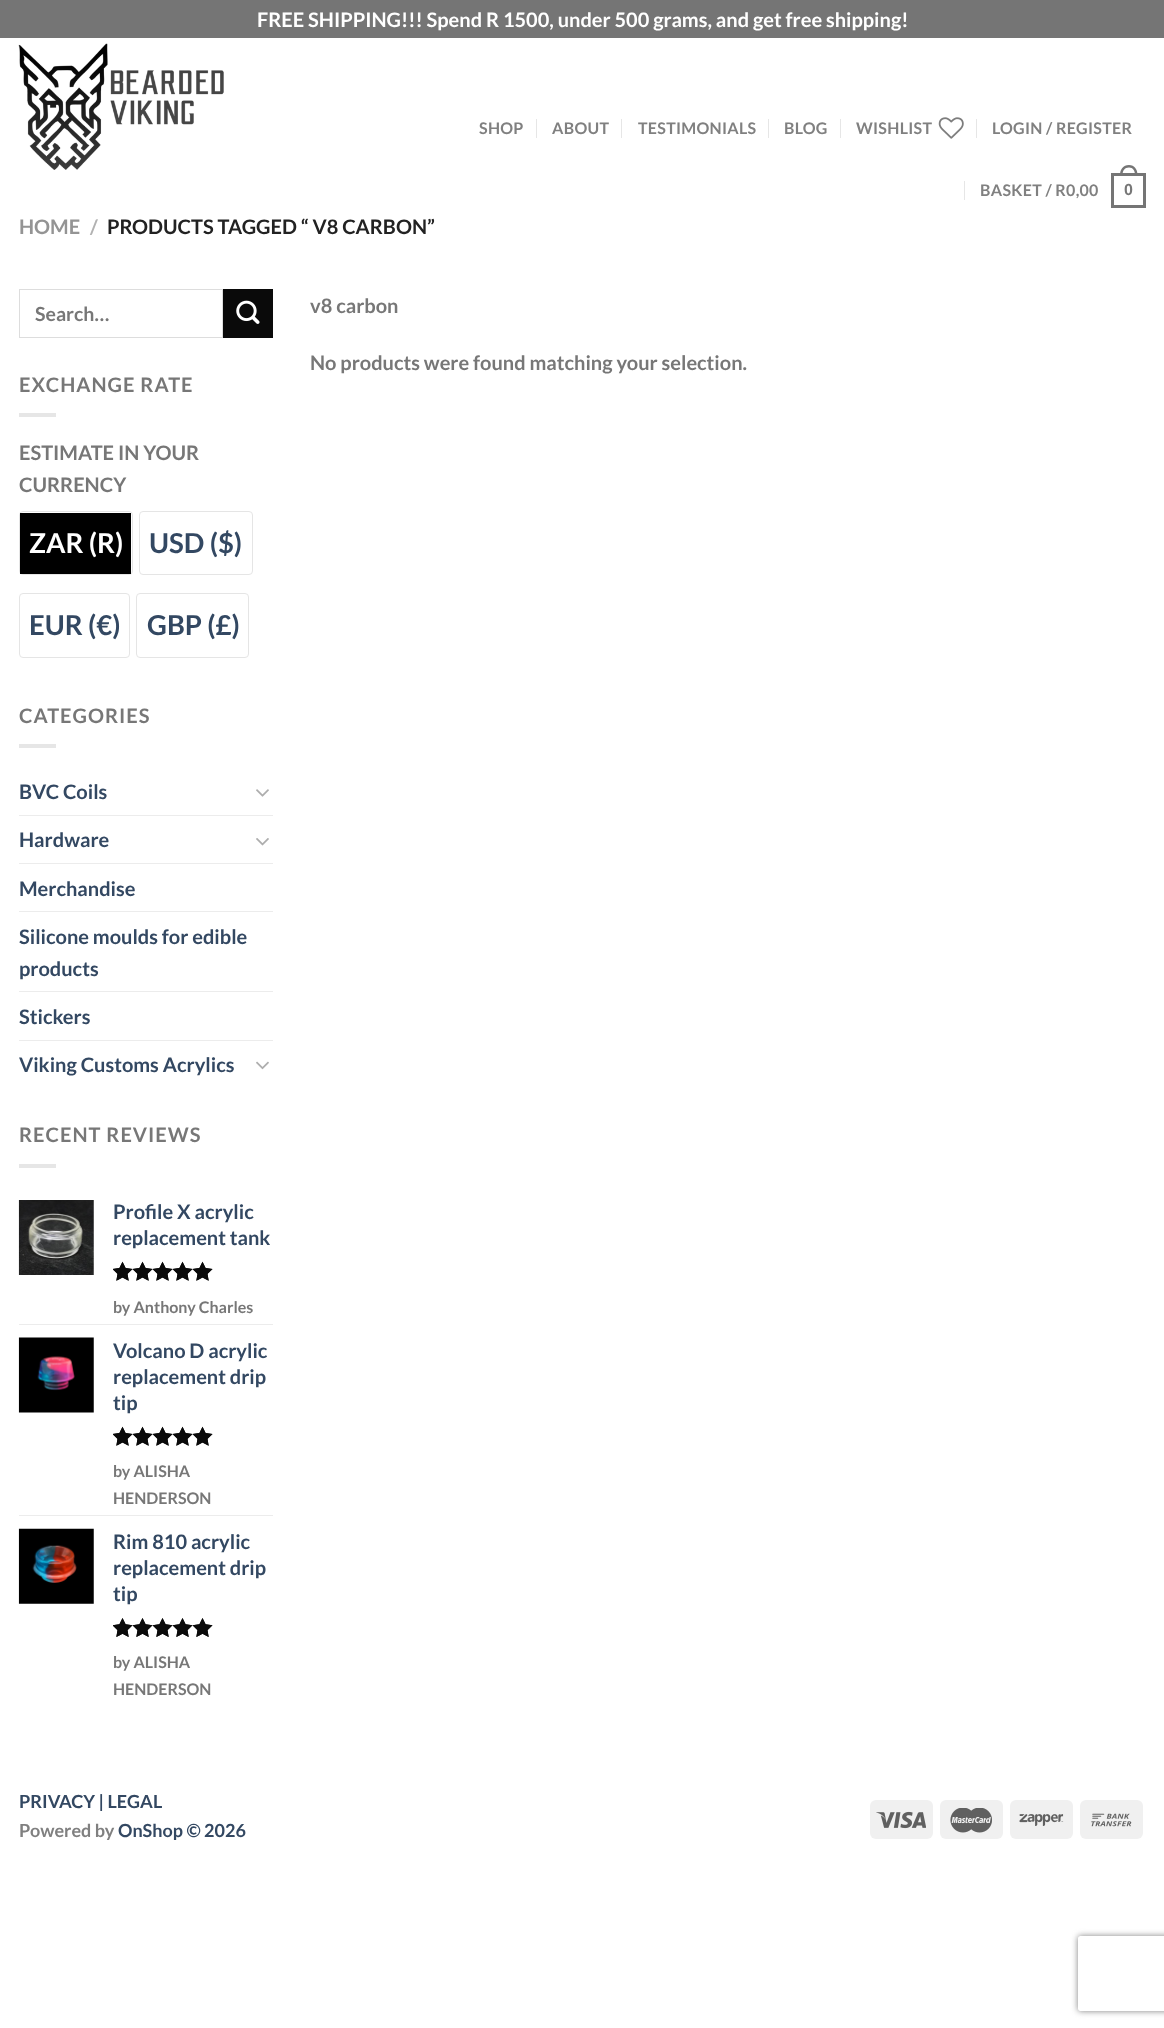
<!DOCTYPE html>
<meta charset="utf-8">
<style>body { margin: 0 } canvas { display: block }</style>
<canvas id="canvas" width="1164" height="2028"></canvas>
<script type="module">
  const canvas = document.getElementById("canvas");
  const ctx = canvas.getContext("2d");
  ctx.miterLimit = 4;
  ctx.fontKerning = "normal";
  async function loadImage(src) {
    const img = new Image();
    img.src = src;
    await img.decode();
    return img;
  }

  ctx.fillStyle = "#ffffff";
  ctx.fillRect(0, 0, 1164, 2028);
  ctx.fillStyle = "#757575";
  ctx.fillRect(0, 0, 1164, 38);
  ctx.font = "bold 20px Lato";
  ctx.fillStyle = "#ffffff";
  ctx.fillText("FREE SHIPPING!!! Spend R 1500, under 500 grams, and get free shipping!", 257, 27);
  ctx.drawImage(await loadImage("img1.png"), 18, 43, 206, 127);
  ctx.letterSpacing = "0.3px";
  ctx.font = "bold 16px Lato";
  ctx.fillStyle = "#808080";
  ctx.fillText("SHOP", 479, 134);
  ctx.fillStyle = "#e6e6e6";
  ctx.fillRect(536, 119, 1, 19);
  ctx.fillStyle = "#808080";
  ctx.fillText("ABOUT", 552, 134);
  ctx.fillStyle = "#e6e6e6";
  ctx.fillRect(621, 119, 1, 19);
  ctx.fillStyle = "#808080";
  ctx.fillText("TESTIMONIALS", 638, 134);
  ctx.fillStyle = "#e6e6e6";
  ctx.fillRect(768, 119, 1, 19);
  ctx.fillStyle = "#808080";
  ctx.fillText("BLOG", 784, 134);
  ctx.fillStyle = "#e6e6e6";
  ctx.fillRect(840, 119, 1, 19);
  ctx.fillStyle = "#808080";
  ctx.fillText("WISHLIST", 856, 134);
  ctx.drawImage(await loadImage("img2.png"), 938, 117, 26, 22);
  ctx.fillStyle = "#e6e6e6";
  ctx.fillRect(976, 119, 1, 19);
  ctx.fillStyle = "#808080";
  ctx.fillText("LOGIN / REGISTER", 992, 134);
  ctx.fillStyle = "#e6e6e6";
  ctx.fillRect(964, 181, 1, 19);
  ctx.fillStyle = "#808080";
  ctx.fillText("BASKET / R0,00", 980, 196);
  ctx.strokeStyle = "#757575";
  ctx.lineWidth = 3;
  ctx.strokeRect(1112.5, 174.5, 32, 32);
  ctx.fillStyle = "#757575";
  ctx.beginPath();
  ctx.moveTo(1129, 165);
  ctx.bezierCurveTo(1134.5, 165, 1137.5, 169.5, 1137.5, 175);
  ctx.lineTo(1120, 175);
  ctx.bezierCurveTo(1120, 169.5, 1123, 165, 1129, 165);
  ctx.closePath();
  ctx.moveTo(1129, 167.5);
  ctx.bezierCurveTo(1133, 167.5, 1135, 171, 1135, 175);
  ctx.lineTo(1122.5, 175);
  ctx.bezierCurveTo(1122.5, 171, 1124.5, 167.5, 1129, 167.5);
  ctx.closePath();
  ctx.fill("evenodd");
  ctx.font = "bold 16px Liberation Sans";
  ctx.fillStyle = "#777777";
  ctx.fillText("0", 1124, 195);
  ctx.letterSpacing = "0px";
  ctx.font = "bold 20px Lato";
  ctx.fillStyle = "#949494";
  ctx.fillText("HOME", 19, 234);
  ctx.fillStyle = "#b2b2b2";
  ctx.fillText("/", 90, 234);
  ctx.fillStyle = "#222222";
  ctx.fillText("PRODUCTS TAGGED “ V8 CARBON”", 107, 234);
  ctx.strokeStyle = "#dddddd";
  ctx.lineWidth = 1;
  ctx.strokeRect(19.5, 289.5, 203, 48);
  ctx.font = "bold 19.5px Lato";
  ctx.fillStyle = "#777777";
  ctx.fillText("Search…", 35, 321);
  ctx.fillStyle = "#0a0a0a";
  ctx.fillRect(223, 289, 50, 49);
  ctx.drawImage(await loadImage("img3.png"), 236, 300, 24, 24);
  ctx.letterSpacing = "1px";
  ctx.font = "bold 20px Lato";
  ctx.fillStyle = "#777777";
  ctx.fillText("EXCHANGE RATE", 19, 392);
  ctx.fillStyle = "#e6e6e6";
  ctx.fillRect(19, 413, 37, 4);
  ctx.letterSpacing = "0px";
  ctx.fillStyle = "#777777";
  ctx.fillText("ESTIMATE IN YOUR", 19, 460);
  ctx.fillText("CURRENCY", 19, 492);
  ctx.beginPath();
  ctx.roundRect(19.5, 511.5, 113, 63, 3.5);
  ctx.strokeStyle = "#e5e5e5";
  ctx.stroke();
  ctx.fillStyle = "#000000";
  ctx.fillRect(20, 513, 111, 61);
  ctx.font = "bold 27.5px Lato";
  ctx.fillStyle = "#ffffff";
  ctx.fillText("ZAR (R)", 29, 553);
  ctx.beginPath();
  ctx.roundRect(139.5, 511.5, 113, 63, 3.5);
  ctx.stroke();
  ctx.fillStyle = "#334862";
  ctx.fillText("USD ($)", 149, 553);
  ctx.beginPath();
  ctx.roundRect(19.5, 593.5, 110, 64, 3.5);
  ctx.stroke();
  ctx.fillText("EUR (€)", 29, 635);
  ctx.beginPath();
  ctx.roundRect(136.5, 593.5, 112, 64, 3.5);
  ctx.stroke();
  ctx.fillText("GBP (£)", 147, 635);
  ctx.letterSpacing = "1px";
  ctx.font = "bold 20px Lato";
  ctx.fillStyle = "#777777";
  ctx.fillText("CATEGORIES", 19, 723);
  ctx.fillStyle = "#e6e6e6";
  ctx.fillRect(19, 744, 37, 4);
  ctx.letterSpacing = "0px";
  ctx.fillStyle = "#334862";
  ctx.fillText("BVC Coils", 19, 799);
  ctx.drawImage(await loadImage("img4.png"), 256, 789, 13, 8);
  ctx.fillStyle = "#ececec";
  ctx.fillRect(19, 815, 254, 1);
  ctx.fillStyle = "#334862";
  ctx.fillText("Hardware", 19, 847);
  ctx.drawImage(await loadImage("img5.png"), 256, 838, 13, 8);
  ctx.fillStyle = "#ececec";
  ctx.fillRect(19, 863, 254, 1);
  ctx.fillStyle = "#334862";
  ctx.fillText("Merchandise", 19, 896);
  ctx.fillStyle = "#ececec";
  ctx.fillRect(19, 911, 254, 1);
  ctx.fillStyle = "#334862";
  ctx.fillText("Silicone moulds for edible", 19, 944);
  ctx.fillText("products", 19, 976);
  ctx.fillStyle = "#ececec";
  ctx.fillRect(19, 991, 254, 1);
  ctx.fillStyle = "#334862";
  ctx.fillText("Stickers", 19, 1024);
  ctx.fillStyle = "#ececec";
  ctx.fillRect(19, 1040, 254, 1);
  ctx.fillStyle = "#334862";
  ctx.fillText("Viking Customs Acrylics", 19, 1072);
  ctx.drawImage(await loadImage("img6.png"), 256, 1061, 13, 9);
  ctx.letterSpacing = "1px";
  ctx.fillStyle = "#777777";
  ctx.fillText("RECENT REVIEWS", 19, 1142);
  ctx.fillStyle = "#e6e6e6";
  ctx.fillRect(19, 1164, 37, 4);
  ctx.drawImage(await loadImage("img7.png"), 18, 1200, 76, 75);
  ctx.letterSpacing = "0px";
  ctx.fillStyle = "#334862";
  ctx.fillText("Profile X acrylic", 113, 1219);
  ctx.fillText("replacement tank", 113, 1245);
  ctx.drawImage(await loadImage("img8.png"), 113, 1261, 100, 20);
  ctx.drawImage(await loadImage("img9.png"), 113, 1261, 100, 20);
  ctx.font = "bold 16px Lato";
  ctx.fillStyle = "#777777";
  ctx.fillText("by Anthony Charles", 113, 1313);
  ctx.fillStyle = "#ececec";
  ctx.fillRect(19, 1324, 254, 1);
  ctx.drawImage(await loadImage("img10.png"), 18, 1337, 76, 76);
  ctx.font = "bold 20px Lato";
  ctx.fillStyle = "#334862";
  ctx.fillText("Volcano D acrylic", 113, 1358);
  ctx.fillText("replacement drip", 113, 1384);
  ctx.fillText("tip", 113, 1410);
  ctx.drawImage(await loadImage("img8.png"), 113, 1426, 100, 20);
  ctx.drawImage(await loadImage("img9.png"), 113, 1426, 100, 20);
  ctx.font = "bold 16px Lato";
  ctx.fillStyle = "#777777";
  ctx.fillText("by ALISHA", 113, 1477);
  ctx.fillText("HENDERSON", 113, 1504);
  ctx.fillStyle = "#ececec";
  ctx.fillRect(19, 1515, 254, 1);
  ctx.drawImage(await loadImage("img11.png"), 18, 1528, 76, 76);
  ctx.font = "bold 20px Lato";
  ctx.fillStyle = "#334862";
  ctx.fillText("Rim 810 acrylic", 113, 1549);
  ctx.fillText("replacement drip", 113, 1575);
  ctx.fillText("tip", 113, 1601);
  ctx.drawImage(await loadImage("img12.png"), 113, 1618, 100, 19);
  ctx.drawImage(await loadImage("img13.png"), 113, 1618, 100, 19);
  ctx.font = "bold 16px Lato";
  ctx.fillStyle = "#777777";
  ctx.fillText("by ALISHA", 113, 1668);
  ctx.fillText("HENDERSON", 113, 1695);
  ctx.font = "bold 20px Lato";
  ctx.fillText("v8 carbon", 310, 313);
  ctx.fillText("No products were found matching your selection.", 310, 370);
  ctx.font = "bold 18px Lato";
  ctx.fillStyle = "#334862";
  ctx.fillText("PRIVACY | LEGAL", 19, 1808);
  ctx.fillStyle = "#808080";
  ctx.fillText("Powered by", 19, 1837);
  ctx.fillStyle = "#334862";
  ctx.fillText("OnShop © 2026", 118, 1837);
  ctx.fillStyle = "#f0f0f0";
  ctx.beginPath();
  ctx.roundRect(870, 1800, 63, 39, 6);
  ctx.fill();
  ctx.drawImage(await loadImage("img14.png"), 876, 1811, 50, 18);
  ctx.beginPath();
  ctx.roundRect(940, 1800, 63, 39, 6);
  ctx.fill();
  ctx.drawImage(await loadImage("img15.png"), 950, 1808, 42, 25);
  ctx.beginPath();
  ctx.roundRect(1010, 1800, 63, 39, 6);
  ctx.fill();
  ctx.drawImage(await loadImage("img16.png"), 1019, 1814, 45, 12);
  ctx.beginPath();
  ctx.roundRect(1080, 1800, 63, 39, 6);
  ctx.fill();
  ctx.drawImage(await loadImage("img17.png"), 1091, 1813, 41, 14);
  ctx.save();
  ctx.beginPath();
  ctx.moveTo(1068, 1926);
  ctx.lineTo(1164, 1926);
  ctx.lineTo(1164, 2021);
  ctx.lineTo(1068, 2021);
  ctx.closePath();
  ctx.moveTo(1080.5, 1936);
  ctx.lineTo(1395.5, 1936);
  ctx.bezierCurveTo(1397, 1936, 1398, 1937, 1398, 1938.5);
  ctx.lineTo(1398, 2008.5);
  ctx.bezierCurveTo(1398, 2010, 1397, 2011, 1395.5, 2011);
  ctx.lineTo(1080.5, 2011);
  ctx.bezierCurveTo(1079, 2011, 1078, 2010, 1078, 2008.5);
  ctx.lineTo(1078, 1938.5);
  ctx.bezierCurveTo(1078, 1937, 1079, 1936, 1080.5, 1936);
  ctx.closePath();
  ctx.clip("evenodd");
  ctx.fillStyle = "#808080";
  ctx.filter = "blur(3px)";
  ctx.beginPath();
  ctx.roundRect(1078, 1936, 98, 75, 2.5);
  ctx.fill();
  ctx.filter = "none";
  ctx.restore();
</script>
